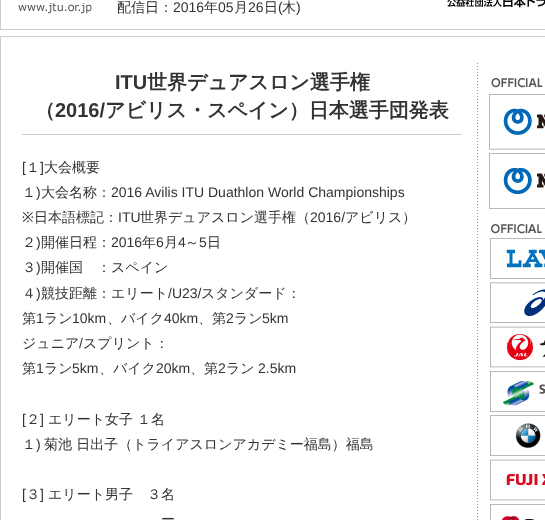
<!DOCTYPE html>
<meta charset="utf-8">
<style>body { margin: 0 } canvas { display: block }</style>
<canvas id="canvas" width="545" height="520"></canvas>
<script type="module">
  const canvas = document.getElementById("canvas");
  const ctx = canvas.getContext("2d");
  ctx.miterLimit = 4;
  ctx.fontKerning = "normal";
  async function loadImage(src) {
    const img = new Image();
    img.src = src;
    await img.decode();
    return img;
  }

  ctx.fillStyle = "#ffffff";
  ctx.fillRect(0, 0, 545, 520);
  ctx.fillStyle = "#cccccc";
  ctx.fillRect(0, 0, 545, 30);
  ctx.fillStyle = "#ffffff";
  ctx.fillRect(1, 0, 544, 29);
  ctx.drawImage(await loadImage("img1.png"), 18, 0, 74, 14);
  ctx.drawImage(await loadImage("img2.png"), 447, 0, 98, 8);
  ctx.font = "500 14px WenQuanYi Zen Hei";
  ctx.fillStyle = "#333333";
  ctx.fillText("配信日：", 117, 12);
  ctx.font = "14px Liberation Sans";
  ctx.fillText("2016", 173, 12);
  ctx.font = "500 14px WenQuanYi Zen Hei";
  ctx.fillText("年", 204, 12);
  ctx.font = "14px Liberation Sans";
  ctx.fillText("05", 218, 12);
  ctx.font = "500 14px WenQuanYi Zen Hei";
  ctx.fillText("月", 234, 12);
  ctx.font = "14px Liberation Sans";
  ctx.fillText("26", 248, 12);
  ctx.font = "500 14px WenQuanYi Zen Hei";
  ctx.fillText("日", 264, 12);
  ctx.font = "14px Liberation Sans";
  ctx.fillText("(", 278, 12);
  ctx.font = "500 14px WenQuanYi Zen Hei";
  ctx.fillText("木", 282, 12);
  ctx.font = "14px Liberation Sans";
  ctx.fillText(")", 296, 12);
  ctx.strokeStyle = "#cccccc";
  ctx.strokeRect(0.5, 36.5, 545, 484);
  ctx.fillStyle = "#cccccc";
  ctx.fillRect(22, 134, 440, 1);
  ctx.font = "bold 20px Liberation Sans";
  ctx.fillStyle = "#333333";
  ctx.fillText("ITU", 115, 89);
  ctx.font = "bold 20px WenQuanYi Zen Hei";
  ctx.fillText("世界デュアスロン選手権", 147, 89);
  ctx.fillText("（", 35, 117);
  ctx.font = "bold 20px Liberation Sans";
  ctx.fillText("2016/", 55, 117);
  ctx.font = "bold 20px WenQuanYi Zen Hei";
  ctx.fillText("アビリス・スペイン）日本選手団発表", 105, 117);
  ctx.font = "14px Liberation Sans";
  ctx.fillText("[", 22, 172);
  ctx.font = "500 14px WenQuanYi Zen Hei";
  ctx.fillText("１", 26, 172);
  ctx.font = "14px Liberation Sans";
  ctx.fillText("]", 40, 172);
  ctx.font = "500 14px WenQuanYi Zen Hei";
  ctx.fillText("大会概要", 44, 172);
  ctx.fillText("１", 22, 197);
  ctx.font = "14px Liberation Sans";
  ctx.fillText(")", 36, 197);
  ctx.font = "500 14px WenQuanYi Zen Hei";
  ctx.fillText("大会名称：", 41, 197);
  ctx.font = "14px Liberation Sans";
  ctx.fillText("2016 Avilis ITU Duathlon World Championships", 111, 197);
  ctx.font = "14px Noto Sans";
  ctx.fillText("※", 22, 222);
  ctx.font = "500 14px WenQuanYi Zen Hei";
  ctx.fillText("日本語標記：", 34, 222);
  ctx.font = "14px Liberation Sans";
  ctx.fillText("ITU", 118, 222);
  ctx.font = "500 14px WenQuanYi Zen Hei";
  ctx.fillText("世界デュアスロン選手権（", 140, 222);
  ctx.font = "14px Liberation Sans";
  ctx.fillText("2016/", 310, 222);
  ctx.font = "500 14px WenQuanYi Zen Hei";
  ctx.fillText("アビリス）", 345, 222);
  ctx.fillText("２", 22, 247);
  ctx.font = "14px Liberation Sans";
  ctx.fillText(")", 36, 247);
  ctx.font = "500 14px WenQuanYi Zen Hei";
  ctx.fillText("開催日程：", 41, 247);
  ctx.font = "14px Liberation Sans";
  ctx.fillText("2016", 111, 247);
  ctx.font = "500 14px WenQuanYi Zen Hei";
  ctx.fillText("年", 142, 247);
  ctx.font = "14px Liberation Sans";
  ctx.fillText("6", 156, 247);
  ctx.font = "500 14px WenQuanYi Zen Hei";
  ctx.fillText("月", 164, 247);
  ctx.font = "14px Liberation Sans";
  ctx.fillText("4", 178, 247);
  ctx.font = "500 14px WenQuanYi Zen Hei";
  ctx.fillText("～", 185, 247);
  ctx.font = "14px Liberation Sans";
  ctx.fillText("5", 199, 247);
  ctx.font = "500 14px WenQuanYi Zen Hei";
  ctx.fillText("日", 207, 247);
  ctx.fillText("３", 22, 272);
  ctx.font = "14px Liberation Sans";
  ctx.fillText(")", 36, 272);
  ctx.font = "500 14px WenQuanYi Zen Hei";
  ctx.fillText("開催国　：スペイン", 41, 272);
  ctx.fillText("４", 22, 298);
  ctx.font = "14px Liberation Sans";
  ctx.fillText(")", 36, 298);
  ctx.font = "500 14px WenQuanYi Zen Hei";
  ctx.fillText("競技距離：エリート", 41, 298);
  ctx.font = "14px Liberation Sans";
  ctx.fillText("/U23/", 168, 298);
  ctx.font = "500 14px WenQuanYi Zen Hei";
  ctx.fillText("スタンダード：", 201, 298);
  ctx.fillText("第", 22, 323);
  ctx.font = "14px Liberation Sans";
  ctx.fillText("1", 36, 323);
  ctx.font = "500 14px WenQuanYi Zen Hei";
  ctx.fillText("ラン", 44, 323);
  ctx.font = "14px Liberation Sans";
  ctx.fillText("10km", 72, 323);
  ctx.font = "500 14px WenQuanYi Zen Hei";
  ctx.fillText("、バイク", 107, 323);
  ctx.font = "14px Liberation Sans";
  ctx.fillText("40km", 164, 323);
  ctx.font = "500 14px WenQuanYi Zen Hei";
  ctx.fillText("、第", 198, 323);
  ctx.font = "14px Liberation Sans";
  ctx.fillText("2", 226, 323);
  ctx.font = "500 14px WenQuanYi Zen Hei";
  ctx.fillText("ラン", 234, 323);
  ctx.font = "14px Liberation Sans";
  ctx.fillText("5km", 262, 323);
  ctx.font = "500 14px WenQuanYi Zen Hei";
  ctx.fillText("ジュニア", 22, 348);
  ctx.font = "14px Liberation Sans";
  ctx.fillText("/", 79, 348);
  ctx.font = "500 14px WenQuanYi Zen Hei";
  ctx.fillText("スプリント：", 83, 348);
  ctx.fillText("第", 22, 373);
  ctx.font = "14px Liberation Sans";
  ctx.fillText("1", 36, 373);
  ctx.font = "500 14px WenQuanYi Zen Hei";
  ctx.fillText("ラン", 44, 373);
  ctx.font = "14px Liberation Sans";
  ctx.fillText("5km", 72, 373);
  ctx.font = "500 14px WenQuanYi Zen Hei";
  ctx.fillText("、バイク", 99, 373);
  ctx.font = "14px Liberation Sans";
  ctx.fillText("20km", 156, 373);
  ctx.font = "500 14px WenQuanYi Zen Hei";
  ctx.fillText("、第", 190, 373);
  ctx.font = "14px Liberation Sans";
  ctx.fillText("2", 218, 373);
  ctx.font = "500 14px WenQuanYi Zen Hei";
  ctx.fillText("ラン", 226, 373);
  ctx.font = "14px Liberation Sans";
  ctx.fillText("2.5km", 258, 373);
  ctx.fillText("[", 22, 424);
  ctx.font = "500 14px WenQuanYi Zen Hei";
  ctx.fillText("２", 26, 424);
  ctx.font = "14px Liberation Sans";
  ctx.fillText("]", 40, 424);
  ctx.font = "500 14px WenQuanYi Zen Hei";
  ctx.fillText("エリート女子", 48, 424);
  ctx.fillText("１名", 137, 424);
  ctx.fillText("１", 22, 449);
  ctx.font = "14px Liberation Sans";
  ctx.fillText(")", 36, 449);
  ctx.font = "500 14px WenQuanYi Zen Hei";
  ctx.fillText("菊池 日出子（トライアスロンアカデミー福島）福島", 44, 449);
  ctx.font = "14px Liberation Sans";
  ctx.fillText("[", 22, 499);
  ctx.font = "500 14px WenQuanYi Zen Hei";
  ctx.fillText("３", 26, 499);
  ctx.font = "14px Liberation Sans";
  ctx.fillText("]", 40, 499);
  ctx.font = "500 14px WenQuanYi Zen Hei";
  ctx.fillText("エリート男子　３名", 48, 499);
  ctx.fillText("ー", 161, 524);
  ctx.drawImage(await loadImage("img3.png"), 477, 63, 1, 457);
  ctx.drawImage(await loadImage("img4.png"), 489, 78, 56, 442);
</script>
